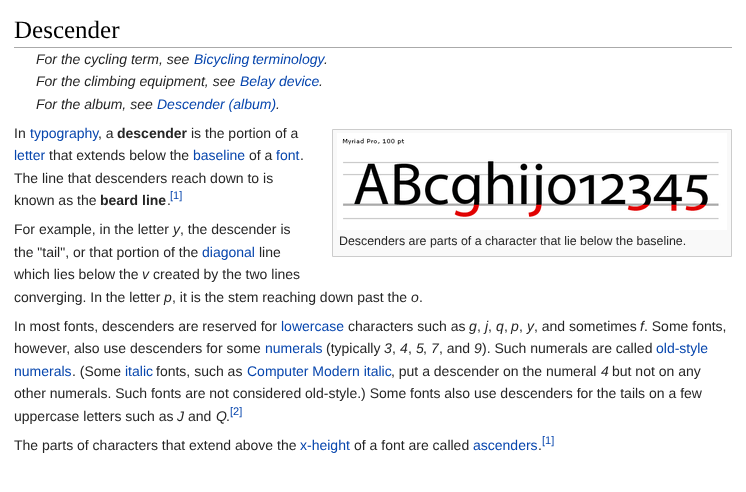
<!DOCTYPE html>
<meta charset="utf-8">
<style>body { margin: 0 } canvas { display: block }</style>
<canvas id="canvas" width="746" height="492"></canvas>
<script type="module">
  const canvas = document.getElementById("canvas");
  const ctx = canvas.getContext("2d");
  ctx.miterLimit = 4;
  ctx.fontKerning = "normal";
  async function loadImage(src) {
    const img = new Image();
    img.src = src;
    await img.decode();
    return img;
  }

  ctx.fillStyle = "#ffffff";
  ctx.fillRect(0, 0, 746, 492);
  ctx.fillStyle = "#aaaaaa";
  ctx.fillRect(14, 47, 718, 1);
  ctx.font = "25px Liberation Serif";
  ctx.fillStyle = "#000000";
  ctx.fillText("Descender", 14, 38);
  ctx.font = "italic 14px Liberation Sans";
  ctx.fillStyle = "#252525";
  ctx.fillText("For the cycling term, see", 36, 64);
  ctx.wordSpacing = "-1px";
  ctx.fillStyle = "#0645ad";
  ctx.fillText("Bicycling terminology", 194, 64);
  ctx.wordSpacing = "0px";
  ctx.fillStyle = "#252525";
  ctx.fillText(".", 324, 64);
  ctx.fillText("For the climbing equipment, see", 36, 86);
  ctx.fillStyle = "#0645ad";
  ctx.fillText("Belay device", 240, 86);
  ctx.fillStyle = "#252525";
  ctx.fillText(".", 319, 86);
  ctx.fillText("For the album, see", 36, 109);
  ctx.fillStyle = "#0645ad";
  ctx.fillText("Descender (album)", 157, 109);
  ctx.fillStyle = "#252525";
  ctx.fillText(".", 276, 109);
  ctx.font = "14px Liberation Sans";
  ctx.fillText("In", 14, 138);
  ctx.fillStyle = "#0645ad";
  ctx.fillText("typography", 30, 138);
  ctx.fillStyle = "#252525";
  ctx.fillText(", a", 98, 138);
  ctx.font = "bold 14px Liberation Sans";
  ctx.fillText("descender", 117, 138);
  ctx.font = "14px Liberation Sans";
  ctx.fillText("is the portion of a", 191, 138);
  ctx.fillStyle = "#0645ad";
  ctx.fillText("letter", 14, 160);
  ctx.fillStyle = "#252525";
  ctx.fillText("that extends below the", 49, 160);
  ctx.fillStyle = "#0645ad";
  ctx.fillText("baseline", 193, 160);
  ctx.fillStyle = "#252525";
  ctx.fillText("of a", 249, 160);
  ctx.fillStyle = "#0645ad";
  ctx.fillText("font", 276, 160);
  ctx.fillStyle = "#252525";
  ctx.fillText(".", 300, 160);
  ctx.fillText("The line that descenders reach down to is", 14, 183);
  ctx.fillText("known as the", 14, 205);
  ctx.font = "bold 14px Liberation Sans";
  ctx.fillText("beard line", 100, 205);
  ctx.font = "14px Liberation Sans";
  ctx.fillText(".", 167, 205);
  ctx.font = "11px Liberation Sans";
  ctx.fillStyle = "#0645ad";
  ctx.fillText("[1]", 170, 199);
  ctx.font = "14px Liberation Sans";
  ctx.fillStyle = "#252525";
  ctx.fillText("For example, in the letter", 14, 234);
  ctx.font = "italic 14px Liberation Sans";
  ctx.fillText("y", 173, 234);
  ctx.font = "14px Liberation Sans";
  ctx.fillText(", the descender is", 180, 234);
  ctx.fillText("the \"tail\", or that portion of the", 14, 257);
  ctx.fillStyle = "#0645ad";
  ctx.fillText("diagonal", 202, 257);
  ctx.fillStyle = "#252525";
  ctx.fillText("line", 259, 257);
  ctx.fillText("which lies below the", 14, 279);
  ctx.font = "italic 14px Liberation Sans";
  ctx.fillText("v", 142, 279);
  ctx.font = "14px Liberation Sans";
  ctx.fillText("created by the two lines", 153, 279);
  ctx.fillText("converging. In the letter", 14, 302);
  ctx.font = "italic 14px Liberation Sans";
  ctx.fillText("p", 164, 302);
  ctx.font = "14px Liberation Sans";
  ctx.fillText(", it is the stem reaching down past the", 172, 302);
  ctx.font = "italic 14px Liberation Sans";
  ctx.fillText("o", 411, 302);
  ctx.font = "14px Liberation Sans";
  ctx.fillText(".", 419, 302);
  ctx.fillStyle = "#f9f9f9";
  ctx.beginPath();
  ctx.rect(332.5, 129.5, 399, 127);
  ctx.fill();
  ctx.strokeStyle = "#cccccc";
  ctx.stroke();
  ctx.drawImage(await loadImage("img1.png"), 337, 133, 390, 97);
  ctx.font = "12.4px Liberation Sans";
  ctx.fillStyle = "#252525";
  ctx.fillText("Descenders are parts of a character that lie below the baseline.", 339, 245);
  ctx.font = "14px Liberation Sans";
  ctx.fillText("In most fonts, descenders are reserved for", 14, 331);
  ctx.fillStyle = "#0645ad";
  ctx.fillText("lowercase", 281, 331);
  ctx.fillStyle = "#252525";
  ctx.fillText("characters such as", 348, 331);
  ctx.font = "italic 14px Liberation Sans";
  ctx.fillText("g", 469, 331);
  ctx.font = "14px Liberation Sans";
  ctx.fillText(",", 477, 331);
  ctx.font = "italic 14px Liberation Sans";
  ctx.fillText("j", 485, 331);
  ctx.font = "14px Liberation Sans";
  ctx.fillText(",", 488, 331);
  ctx.font = "italic 14px Liberation Sans";
  ctx.fillText("q", 496, 331);
  ctx.font = "14px Liberation Sans";
  ctx.fillText(",", 504, 331);
  ctx.font = "italic 14px Liberation Sans";
  ctx.fillText("p", 511, 331);
  ctx.font = "14px Liberation Sans";
  ctx.fillText(",", 519, 331);
  ctx.font = "italic 14px Liberation Sans";
  ctx.fillText("y", 527, 331);
  ctx.font = "14px Liberation Sans";
  ctx.fillText(", and sometimes", 534, 331);
  ctx.font = "italic 14px Liberation Sans";
  ctx.fillText("f", 640, 331);
  ctx.font = "14px Liberation Sans";
  ctx.fillText(". Some fonts,", 644, 331);
  ctx.fillText("however, also use descenders for some", 14, 353);
  ctx.fillStyle = "#0645ad";
  ctx.fillText("numerals", 265, 353);
  ctx.fillStyle = "#252525";
  ctx.fillText("(typically", 326, 353);
  ctx.font = "italic 14px Liberation Sans";
  ctx.fillText("3", 384, 353);
  ctx.font = "14px Liberation Sans";
  ctx.fillText(",", 392, 353);
  ctx.font = "italic 14px Liberation Sans";
  ctx.fillText("4", 400, 353);
  ctx.font = "14px Liberation Sans";
  ctx.fillText(",", 408, 353);
  ctx.font = "italic 14px Liberation Sans";
  ctx.fillText("5", 416, 353);
  ctx.font = "14px Liberation Sans";
  ctx.fillText(",", 423, 353);
  ctx.font = "italic 14px Liberation Sans";
  ctx.fillText("7", 431, 353);
  ctx.font = "14px Liberation Sans";
  ctx.fillText(", and", 439, 353);
  ctx.font = "italic 14px Liberation Sans";
  ctx.fillText("9", 474, 353);
  ctx.font = "14px Liberation Sans";
  ctx.fillText("). Such numerals are called", 482, 353);
  ctx.fillStyle = "#0645ad";
  ctx.fillText("old-style", 656, 353);
  ctx.fillText("numerals", 14, 376);
  ctx.fillStyle = "#252525";
  ctx.fillText(". (Some", 72, 376);
  ctx.fillStyle = "#0645ad";
  ctx.fillText("italic", 125, 376);
  ctx.fillStyle = "#252525";
  ctx.fillText("fonts, such as", 156, 376);
  ctx.fillStyle = "#0645ad";
  ctx.fillText("Computer Modern italic", 247, 376);
  ctx.fillStyle = "#252525";
  ctx.fillText(", put a descender on the numeral", 391, 376);
  ctx.font = "italic 14px Liberation Sans";
  ctx.fillText("4", 601, 376);
  ctx.font = "14px Liberation Sans";
  ctx.fillText("but not on any", 612, 376);
  ctx.fillText("other numerals. Such fonts are not considered old-style.) Some fonts also use descenders for the tails on a few", 14, 398);
  ctx.fillText("uppercase letters such as", 14, 421);
  ctx.font = "italic 14px Liberation Sans";
  ctx.fillText("J", 177, 421);
  ctx.font = "14px Liberation Sans";
  ctx.fillText("and", 188, 421);
  ctx.font = "italic 14px Liberation Sans";
  ctx.fillText("Q", 216, 421);
  ctx.font = "14px Liberation Sans";
  ctx.fillText(".", 226, 421);
  ctx.font = "11px Liberation Sans";
  ctx.fillStyle = "#0645ad";
  ctx.fillText("[2]", 230, 415);
  ctx.font = "14px Liberation Sans";
  ctx.fillStyle = "#252525";
  ctx.fillText("The parts of characters that extend above the", 14, 450);
  ctx.fillStyle = "#0645ad";
  ctx.fillText("x-height", 300, 450);
  ctx.fillStyle = "#252525";
  ctx.fillText("of a font are called", 354, 450);
  ctx.fillStyle = "#0645ad";
  ctx.fillText("ascenders", 473, 450);
  ctx.fillStyle = "#252525";
  ctx.fillText(".", 538, 450);
  ctx.font = "11px Liberation Sans";
  ctx.fillStyle = "#0645ad";
  ctx.fillText("[1]", 542, 444);
</script>
